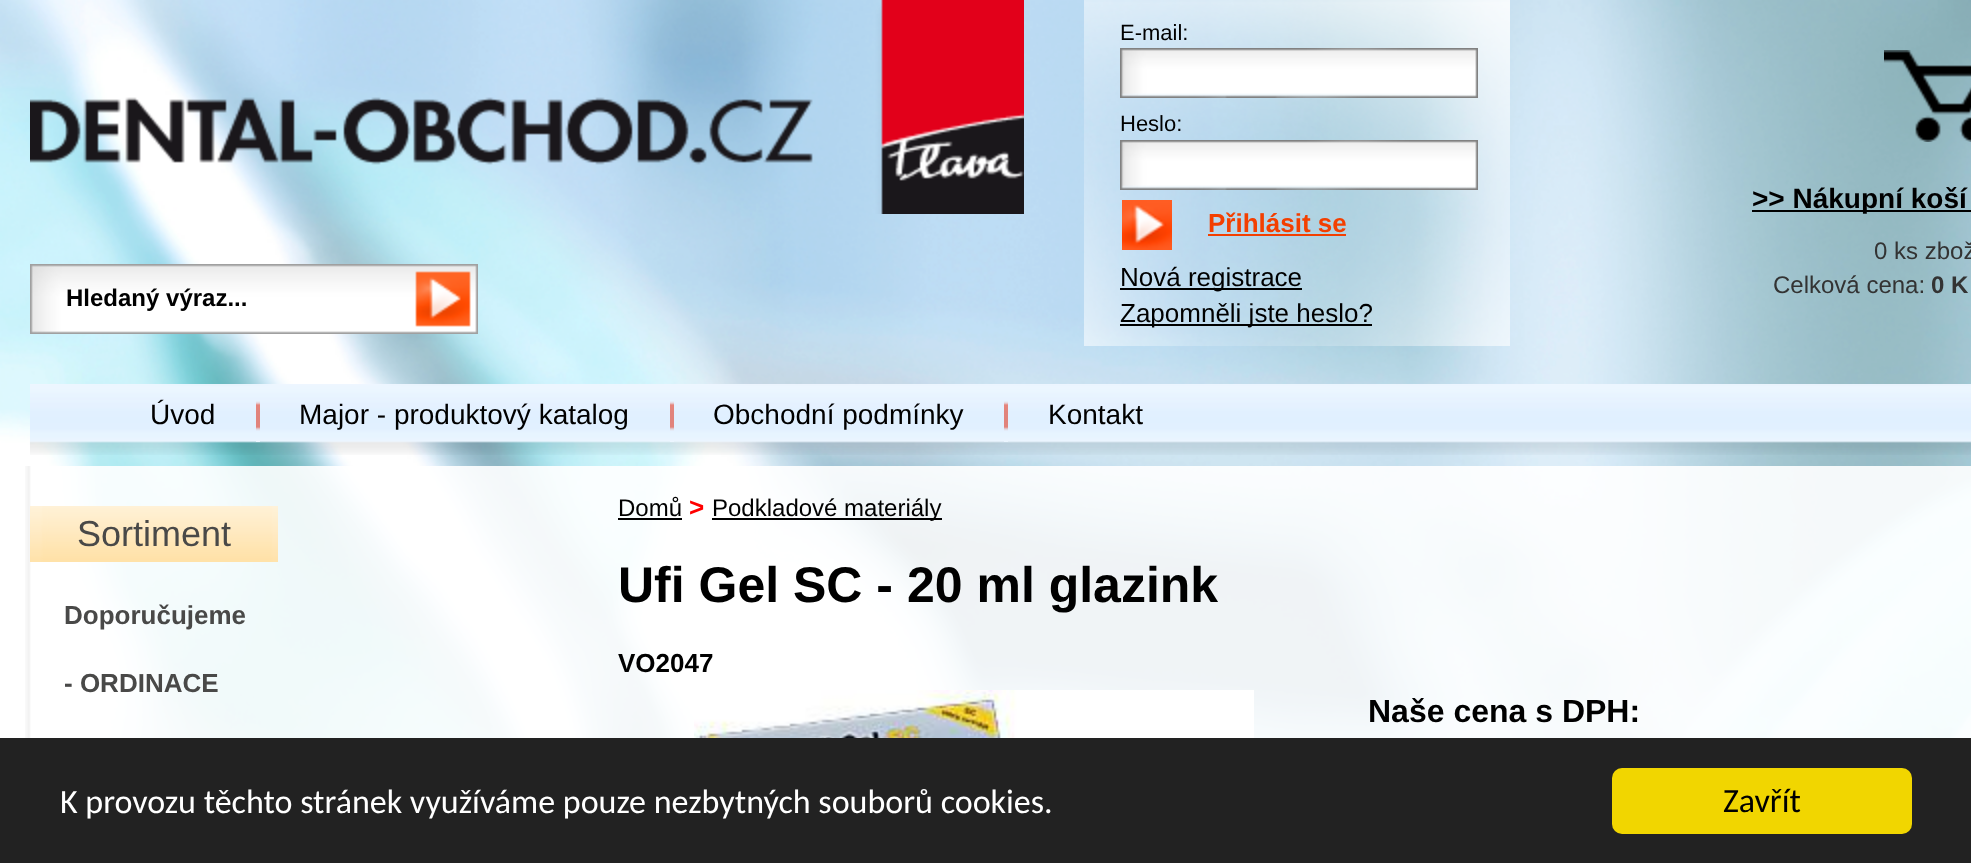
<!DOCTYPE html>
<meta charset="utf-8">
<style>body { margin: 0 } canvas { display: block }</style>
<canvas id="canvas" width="1971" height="863"></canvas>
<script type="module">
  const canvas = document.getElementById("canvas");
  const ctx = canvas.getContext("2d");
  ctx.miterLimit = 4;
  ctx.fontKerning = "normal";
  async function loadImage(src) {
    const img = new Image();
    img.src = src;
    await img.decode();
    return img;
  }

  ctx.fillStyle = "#ffffff";
  ctx.fillRect(0, 0, 1971, 863);
  ctx.drawImage(await loadImage("img1.png"), 0, 0, 1971, 738);
  ctx.drawImage(await loadImage("img2.png"), 30, 0, 994, 214);
  ctx.drawImage(await loadImage("img3.png"), 30, 264, 380, 70);
  ctx.font = "bold 24px Liberation Sans";
  ctx.fillStyle = "#000000";
  ctx.fillText("Hledaný výraz...", 66, 306);
  ctx.drawImage(await loadImage("img4.png"), 410, 264, 68, 70);
  ctx.drawImage(await loadImage("img5.png"), 1084, 0, 426, 346);
  ctx.font = "22px Liberation Sans";
  ctx.fillText("E-mail:", 1120, 40);
  ctx.drawImage(await loadImage("img6.png"), 1120, 48, 358, 50);
  ctx.fillText("Heslo:", 1120, 131);
  ctx.drawImage(await loadImage("img7.png"), 1120, 140, 358, 50);
  ctx.drawImage(await loadImage("img8.png"), 1122, 200, 50, 50);
  ctx.font = "bold 26px Liberation Sans";
  ctx.fillStyle = "#f33f00";
  ctx.fillText("Přihlásit se", 1208, 232);
  ctx.fillRect(1208, 234, 138, 2);
  ctx.fillStyle = "#000000";
  ctx.fillRect(1120, 288, 182, 2);
  ctx.font = "26px Liberation Sans";
  ctx.fillText("Nová registrace", 1120, 286);
  ctx.fillRect(1120, 324, 252, 2);
  ctx.fillText("Zapomněli jste heslo?", 1120, 322);
  ctx.drawImage(await loadImage("img9.png"), 1884, 50, 87, 92);
  ctx.fillRect(1752, 210, 219, 2);
  ctx.font = "bold 28px Liberation Sans";
  ctx.fillText(">> Nákupní koší", 1752, 208);
  ctx.font = "24px Liberation Sans";
  ctx.fillStyle = "#333333";
  ctx.fillText("0 ks zbož", 1874, 259);
  ctx.fillText("Celková cena:", 1773, 293);
  ctx.font = "bold 24px Liberation Sans";
  ctx.fillText("0 K", 1931, 293);
  ctx.drawImage(await loadImage("img10.png"), 30, 384, 1941, 71);
  ctx.font = "28px Liberation Sans";
  ctx.fillStyle = "#000000";
  ctx.fillText("Úvod", 150, 424);
  ctx.drawImage(await loadImage("img11.png"), 256, 401, 4, 41);
  ctx.fillText("Major - produktový katalog", 299, 424);
  ctx.drawImage(await loadImage("img11.png"), 670, 401, 4, 41);
  ctx.fillText("Obchodní podmínky", 713, 424);
  ctx.drawImage(await loadImage("img11.png"), 1004, 401, 4, 41);
  ctx.fillText("Kontakt", 1048, 424);
  ctx.drawImage(await loadImage("img12.png"), 25, 466, 1946, 272);
  ctx.drawImage(await loadImage("img13.png"), 30, 506, 248, 56);
  ctx.font = "36px Liberation Sans";
  ctx.fillStyle = "#494948";
  ctx.fillText("Sortiment", 77, 546);
  ctx.font = "bold 26px Liberation Sans";
  ctx.fillText("Doporučujeme", 64, 624);
  ctx.fillText("- ORDINACE", 64, 692);
  ctx.font = "24px Liberation Sans";
  ctx.fillStyle = "#000000";
  ctx.fillText("Domů", 618, 516);
  ctx.fillRect(618, 518, 64, 2);
  ctx.font = "bold 26px Liberation Sans";
  ctx.fillStyle = "#ff0000";
  ctx.fillText(">", 689, 516);
  ctx.fillStyle = "#000000";
  ctx.fillRect(712, 518, 230, 2);
  ctx.font = "24px Liberation Sans";
  ctx.fillText("Podkladové materiály", 712, 516);
  ctx.font = "bold 50px Liberation Sans";
  ctx.fillText("Ufi Gel SC - 20 ml glazink", 618, 602);
  ctx.font = "bold 26px Liberation Sans";
  ctx.fillText("VO2047", 618, 672);
  ctx.drawImage(await loadImage("img14.png"), 694, 690, 560, 48);
  ctx.font = "bold 32px Liberation Sans";
  ctx.fillText("Naše cena s DPH:", 1368, 722);
  ctx.fillStyle = "#222222";
  ctx.fillRect(0, 738, 1971, 125);
  ctx.font = "34px Carlito";
  ctx.fillStyle = "#ffffff";
  ctx.fillText("K provozu těchto stránek využíváme pouze nezbytných souborů cookies.", 60, 813);
  ctx.fillStyle = "#f1d600";
  ctx.beginPath();
  ctx.roundRect(1612, 768, 300, 66, 10);
  ctx.fill();
  ctx.fillStyle = "#000000";
  ctx.fillText("Zavřít", 1723, 812);
</script>
